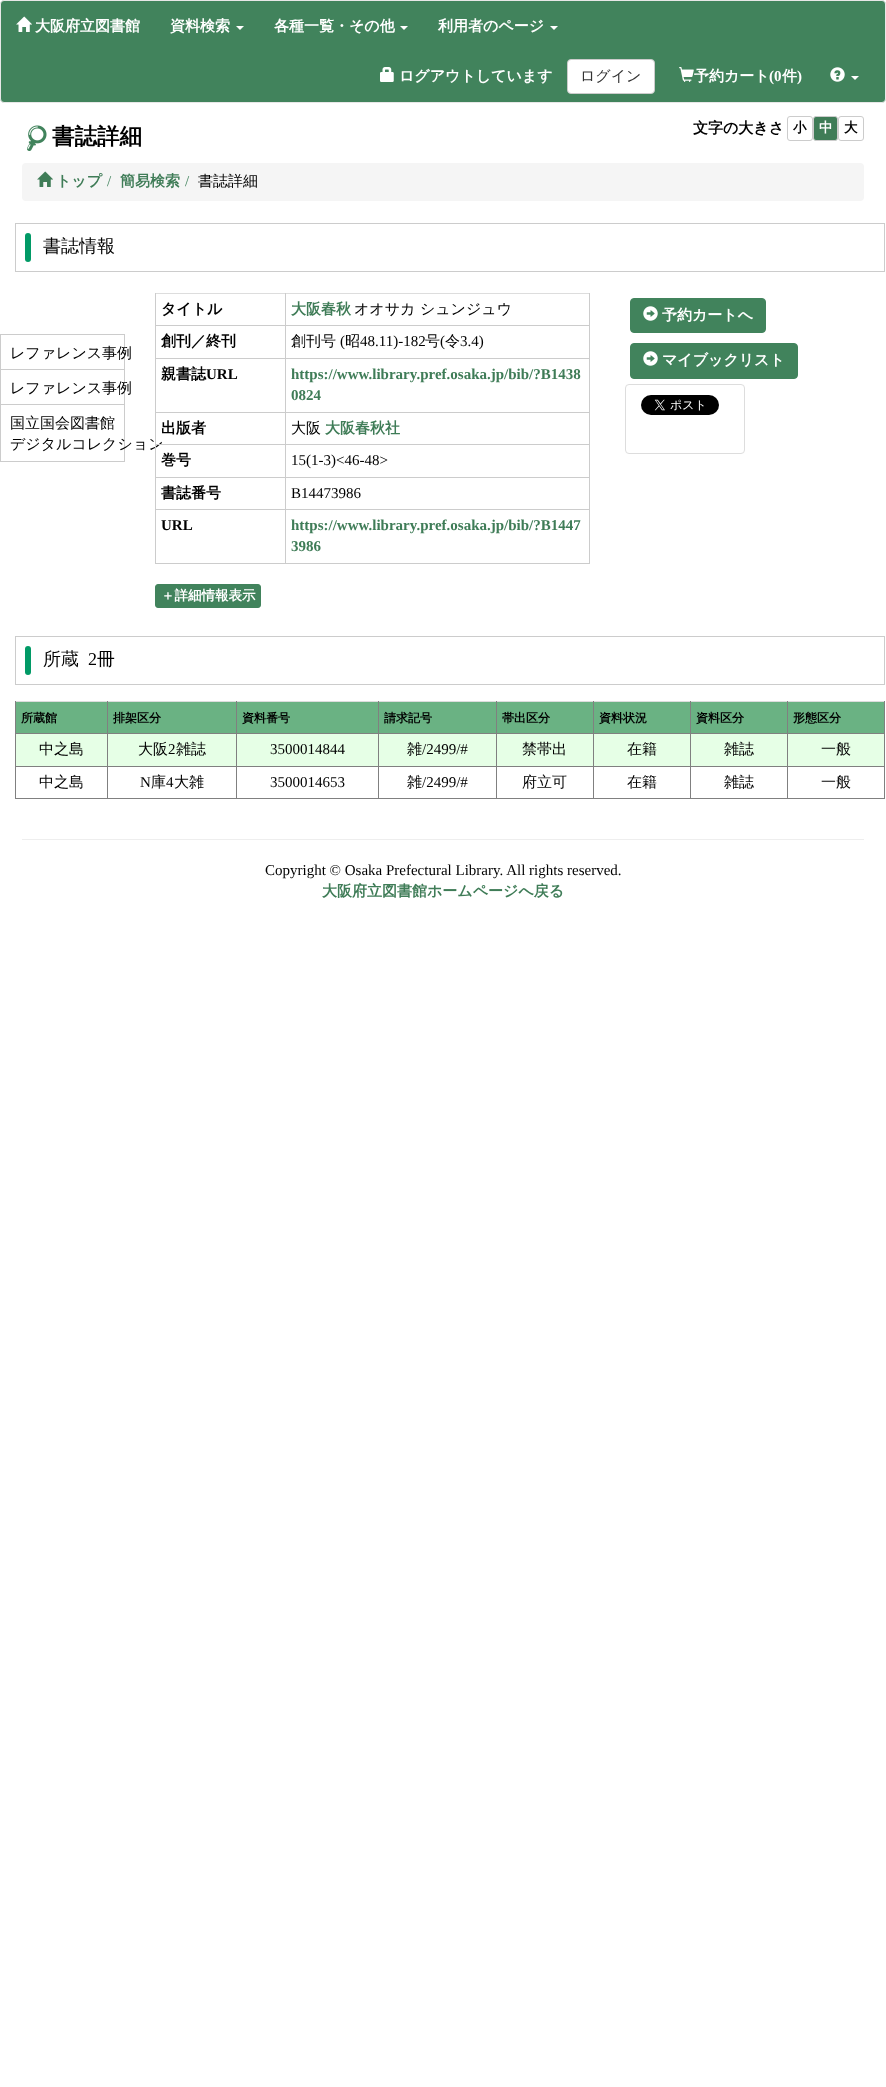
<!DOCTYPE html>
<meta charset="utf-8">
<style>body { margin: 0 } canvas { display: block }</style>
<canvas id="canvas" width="886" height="2087"></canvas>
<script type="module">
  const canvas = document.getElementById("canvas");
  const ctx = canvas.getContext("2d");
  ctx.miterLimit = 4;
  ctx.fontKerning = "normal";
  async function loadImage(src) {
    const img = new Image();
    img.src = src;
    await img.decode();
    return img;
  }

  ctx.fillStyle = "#ffffff";
  ctx.fillRect(0, 0, 886, 2087);
  ctx.fillStyle = "#41835c";
  ctx.beginPath();
  ctx.roundRect(0.5, 0.5, 885, 102, 3.5);
  ctx.fill();
  ctx.strokeStyle = "#e7e7e7";
  ctx.stroke();
  ctx.drawImage(await loadImage("img1.png"), 16, 16, 16, 16);
  ctx.font = "bold 15px WenQuanYi Zen Hei";
  ctx.fillStyle = "#ffffff";
  ctx.fillText("大阪府立図書館", 35, 31);
  ctx.fillText("資料検索", 170, 31);
  ctx.beginPath();
  ctx.moveTo(236, 26);
  ctx.lineTo(244, 26);
  ctx.lineTo(240, 30);
  ctx.closePath();
  ctx.fill();
  ctx.fillText("各種一覧・その他", 274, 31);
  ctx.beginPath();
  ctx.moveTo(400, 26);
  ctx.lineTo(408, 26);
  ctx.lineTo(404, 30);
  ctx.closePath();
  ctx.fill();
  ctx.fillText("利用者のページ", 438, 31);
  ctx.beginPath();
  ctx.moveTo(550, 26);
  ctx.lineTo(558, 26);
  ctx.lineTo(554, 30);
  ctx.closePath();
  ctx.fill();
  ctx.drawImage(await loadImage("img2.png"), 380, 67, 14, 15);
  ctx.fillText("ログアウトしています", 399, 81);
  ctx.beginPath();
  ctx.roundRect(567.5, 59.5, 87, 34, 3.5);
  ctx.fill();
  ctx.strokeStyle = "#cccccc";
  ctx.stroke();
  ctx.font = "500 15px WenQuanYi Zen Hei";
  ctx.fillStyle = "#333333";
  ctx.fillText("ログイン", 580, 81);
  ctx.drawImage(await loadImage("img3.png"), 679, 67, 15, 15);
  ctx.font = "bold 15px WenQuanYi Zen Hei";
  ctx.fillStyle = "#ffffff";
  ctx.fillText("予約カート", 694, 81);
  ctx.font = "bold 15px Liberation Serif";
  ctx.fillText("(0", 769, 81);
  ctx.font = "bold 15px WenQuanYi Zen Hei";
  ctx.fillText("件", 782, 81);
  ctx.font = "bold 15px Liberation Serif";
  ctx.fillText(")", 797, 81);
  ctx.drawImage(await loadImage("img4.png"), 830, 67, 15, 15);
  ctx.beginPath();
  ctx.moveTo(851, 76);
  ctx.lineTo(859, 76);
  ctx.lineTo(855, 80);
  ctx.closePath();
  ctx.fill();
  ctx.drawImage(await loadImage("img5.png"), 27, 125, 20, 26);
  ctx.font = "bold 22.5px WenQuanYi Zen Hei";
  ctx.fillStyle = "#000000";
  ctx.fillText("書誌詳細", 52, 144);
  ctx.font = "bold 15px WenQuanYi Zen Hei";
  ctx.fillText("文字の大きさ", 693, 133);
  ctx.beginPath();
  ctx.roundRect(787.5, 116.5, 25, 24, 2.5);
  ctx.stroke();
  ctx.font = "bold 13.5px WenQuanYi Zen Hei";
  ctx.fillText("小", 793, 132);
  ctx.fillStyle = "#3f7c57";
  ctx.beginPath();
  ctx.roundRect(813.5, 116.5, 24, 24, 2.5);
  ctx.fill();
  ctx.stroke();
  ctx.fillStyle = "#ffffff";
  ctx.fillText("中", 819, 132);
  ctx.beginPath();
  ctx.roundRect(838.5, 116.5, 25, 24, 2.5);
  ctx.stroke();
  ctx.fillStyle = "#000000";
  ctx.fillText("大", 844, 132);
  ctx.fillStyle = "#f5f5f5";
  ctx.beginPath();
  ctx.roundRect(22, 163, 842, 38, 4);
  ctx.fill();
  ctx.drawImage(await loadImage("img6.png"), 37, 171, 16, 16);
  ctx.font = "bold 15px WenQuanYi Zen Hei";
  ctx.fillStyle = "#3f7c57";
  ctx.fillText("トップ", 56, 186);
  ctx.font = "15px Liberation Serif";
  ctx.fillStyle = "#41835c";
  ctx.fillText("/", 107, 186);
  ctx.font = "bold 15px WenQuanYi Zen Hei";
  ctx.fillStyle = "#3f7c57";
  ctx.fillText("簡易検索", 120, 186);
  ctx.font = "15px Liberation Serif";
  ctx.fillStyle = "#41835c";
  ctx.fillText("/", 185, 186);
  ctx.font = "500 15px WenQuanYi Zen Hei";
  ctx.fillStyle = "#000000";
  ctx.fillText("書誌詳細", 198, 186);
  ctx.strokeRect(15.5, 223.5, 869, 48);
  ctx.fillStyle = "#019a66";
  ctx.beginPath();
  ctx.roundRect(25, 233, 6, 29, 3);
  ctx.fill();
  ctx.font = "500 18px WenQuanYi Zen Hei";
  ctx.fillStyle = "#000000";
  ctx.fillText("書誌情報", 43, 252);
  ctx.fillStyle = "#cccccc";
  ctx.fillRect(155, 563, 435, 1);
  ctx.fillStyle = "#dddddd";
  ctx.fillRect(155, 293, 435, 1);
  ctx.fillStyle = "#cccccc";
  ctx.fillRect(589, 325, 1, 239);
  ctx.fillRect(589, 293, 1, 33);
  ctx.fillRect(285, 509, 1, 55);
  ctx.fillRect(285, 509, 305, 1);
  ctx.fillRect(285, 477, 1, 33);
  ctx.fillRect(285, 477, 305, 1);
  ctx.fillRect(285, 444, 1, 34);
  ctx.fillRect(285, 444, 305, 1);
  ctx.fillRect(285, 412, 1, 33);
  ctx.fillRect(285, 412, 305, 1);
  ctx.fillRect(285, 358, 1, 55);
  ctx.fillRect(285, 358, 305, 1);
  ctx.fillRect(285, 325, 1, 34);
  ctx.fillRect(285, 325, 305, 1);
  ctx.fillRect(285, 293, 1, 33);
  ctx.fillRect(155, 509, 1, 55);
  ctx.fillRect(155, 509, 131, 1);
  ctx.fillRect(155, 477, 1, 33);
  ctx.fillRect(155, 477, 131, 1);
  ctx.fillRect(124, 370, 1, 92);
  ctx.font = "500 15px WenQuanYi Zen Hei";
  ctx.fillStyle = "#000000";
  ctx.fillText("デジタルコレクション", 10, 449);
  ctx.fillStyle = "#cccccc";
  ctx.fillRect(155, 444, 1, 34);
  ctx.fillRect(155, 444, 131, 1);
  ctx.fillRect(155, 412, 1, 33);
  ctx.fillRect(155, 412, 131, 1);
  ctx.fillRect(155, 358, 1, 55);
  ctx.fillRect(155, 358, 131, 1);
  ctx.fillRect(155, 325, 1, 34);
  ctx.fillRect(155, 325, 131, 1);
  ctx.fillRect(155, 293, 1, 33);
  ctx.font = "bold 15px WenQuanYi Zen Hei";
  ctx.fillStyle = "#000000";
  ctx.fillText("タイトル", 161, 314);
  ctx.fillStyle = "#3f7c57";
  ctx.fillText("大阪春秋", 291, 314);
  ctx.font = "500 15px WenQuanYi Zen Hei";
  ctx.fillStyle = "#000000";
  ctx.fillText("オオサカ シュンジュウ", 354, 314);
  ctx.font = "bold 15px WenQuanYi Zen Hei";
  ctx.fillText("創刊／終刊", 161, 346);
  ctx.font = "500 15px WenQuanYi Zen Hei";
  ctx.fillText("創刊号", 291, 346);
  ctx.font = "15px Liberation Serif";
  ctx.fillText("(", 340, 346);
  ctx.font = "500 15px WenQuanYi Zen Hei";
  ctx.fillText("昭", 345, 346);
  ctx.font = "15px Liberation Serif";
  ctx.fillText("48.11)-182", 360, 346);
  ctx.font = "500 15px WenQuanYi Zen Hei";
  ctx.fillText("号", 425, 346);
  ctx.font = "15px Liberation Serif";
  ctx.fillText("(", 440, 346);
  ctx.font = "500 15px WenQuanYi Zen Hei";
  ctx.fillText("令", 445, 346);
  ctx.font = "15px Liberation Serif";
  ctx.fillText("3.4)", 460, 346);
  ctx.font = "bold 15px WenQuanYi Zen Hei";
  ctx.fillText("親書誌", 161, 379);
  ctx.font = "bold 15px Liberation Serif";
  ctx.fillText("URL", 206, 379);
  ctx.fillStyle = "#3f7c57";
  ctx.fillText("https://www.library.pref.osaka.jp/bib/?B1438", 291, 379);
  ctx.fillText("0824", 291, 400);
  ctx.font = "bold 15px WenQuanYi Zen Hei";
  ctx.fillStyle = "#000000";
  ctx.fillText("出版者", 161, 433);
  ctx.font = "500 15px WenQuanYi Zen Hei";
  ctx.fillText("大阪", 291, 433);
  ctx.font = "bold 15px WenQuanYi Zen Hei";
  ctx.fillStyle = "#3f7c57";
  ctx.fillText("大阪春秋社", 325, 433);
  ctx.fillStyle = "#000000";
  ctx.fillText("巻号", 161, 465);
  ctx.font = "15px Liberation Serif";
  ctx.fillText("15(1-3)<46-48>", 291, 465);
  ctx.font = "bold 15px WenQuanYi Zen Hei";
  ctx.fillText("書誌番号", 161, 498);
  ctx.font = "15px Liberation Serif";
  ctx.fillText("B14473986", 291, 498);
  ctx.font = "bold 15px Liberation Serif";
  ctx.fillText("URL", 161, 530);
  ctx.fillStyle = "#3f7c57";
  ctx.fillText("https://www.library.pref.osaka.jp/bib/?B1447", 291, 530);
  ctx.fillText("3986", 291, 551);
  ctx.fillStyle = "#41835c";
  ctx.beginPath();
  ctx.roundRect(155.5, 584.5, 105, 23, 2.5);
  ctx.fill();
  ctx.strokeStyle = "#41835c";
  ctx.stroke();
  ctx.font = "bold 13.5px WenQuanYi Zen Hei";
  ctx.fillStyle = "#ffffff";
  ctx.fillText("＋詳細情報表示", 161, 600);
  ctx.fillStyle = "#41835c";
  ctx.beginPath();
  ctx.roundRect(630.5, 298.5, 135, 34, 3.5);
  ctx.fill();
  ctx.stroke();
  ctx.drawImage(await loadImage("img7.png"), 643, 306, 15, 15);
  ctx.font = "bold 15px WenQuanYi Zen Hei";
  ctx.fillStyle = "#ffffff";
  ctx.fillText("予約カートへ", 662, 320);
  ctx.fillStyle = "#41835c";
  ctx.beginPath();
  ctx.roundRect(630.5, 343.5, 167, 35, 3.5);
  ctx.fill();
  ctx.stroke();
  ctx.drawImage(await loadImage("img7.png"), 643, 351, 15, 15);
  ctx.fillStyle = "#ffffff";
  ctx.fillText("マイブックリスト", 662, 365);
  ctx.beginPath();
  ctx.roundRect(625.5, 384.5, 119, 69, 3.5);
  ctx.strokeStyle = "#dddddd";
  ctx.stroke();
  ctx.drawImage(await loadImage("img8.png"), 641, 395, 78, 20);
  ctx.strokeStyle = "#cccccc";
  ctx.strokeRect(0.5, 334.5, 124, 35);
  ctx.font = "500 15px WenQuanYi Zen Hei";
  ctx.fillStyle = "#000000";
  ctx.fillText("レファレンス事例", 10, 358);
  ctx.fillStyle = "#cccccc";
  ctx.fillRect(0, 404, 125, 1);
  ctx.fillRect(0, 370, 1, 35);
  ctx.fillStyle = "#000000";
  ctx.fillText("レファレンス事例", 10, 393);
  ctx.fillStyle = "#cccccc";
  ctx.fillRect(0, 461, 125, 1);
  ctx.fillRect(0, 405, 1, 57);
  ctx.fillStyle = "#000000";
  ctx.fillText("国立国会図書館", 10, 428);
  ctx.strokeRect(15.5, 636.5, 869, 48);
  ctx.fillStyle = "#019a66";
  ctx.beginPath();
  ctx.roundRect(25, 646, 6, 29, 3);
  ctx.fill();
  ctx.font = "500 18px WenQuanYi Zen Hei";
  ctx.fillStyle = "#000000";
  ctx.fillText("所蔵", 43, 665);
  ctx.font = "18px Liberation Serif";
  ctx.fillText("2", 88, 665);
  ctx.font = "500 18px WenQuanYi Zen Hei";
  ctx.fillText("冊", 97, 665);
  ctx.fillStyle = "#808080";
  ctx.fillRect(15, 798, 870, 1);
  ctx.fillStyle = "#6ab283";
  ctx.fillRect(16, 702, 868, 31);
  ctx.fillStyle = "#dddddd";
  ctx.fillRect(15, 701, 870, 1);
  ctx.fillStyle = "#808080";
  ctx.fillRect(884, 733, 1, 66);
  ctx.fillRect(884, 701, 1, 33);
  ctx.fillStyle = "#e6ffe6";
  ctx.fillRect(16, 734, 868, 32);
  ctx.fillStyle = "#808080";
  ctx.fillRect(787, 766, 1, 33);
  ctx.fillRect(787, 766, 98, 1);
  ctx.fillRect(787, 733, 1, 34);
  ctx.fillRect(787, 733, 98, 1);
  ctx.fillRect(787, 701, 1, 33);
  ctx.fillRect(690, 766, 1, 33);
  ctx.fillRect(690, 766, 98, 1);
  ctx.fillRect(690, 733, 1, 34);
  ctx.fillRect(690, 733, 98, 1);
  ctx.fillRect(690, 701, 1, 33);
  ctx.fillRect(593, 766, 1, 33);
  ctx.fillRect(593, 766, 98, 1);
  ctx.fillRect(593, 733, 1, 34);
  ctx.fillRect(593, 733, 98, 1);
  ctx.fillRect(593, 701, 1, 33);
  ctx.fillRect(496, 766, 1, 33);
  ctx.fillRect(496, 766, 98, 1);
  ctx.fillRect(496, 733, 1, 34);
  ctx.fillRect(496, 733, 98, 1);
  ctx.fillRect(496, 701, 1, 33);
  ctx.fillRect(378, 766, 1, 33);
  ctx.fillRect(378, 766, 119, 1);
  ctx.fillRect(378, 733, 1, 34);
  ctx.fillRect(378, 733, 119, 1);
  ctx.fillRect(378, 701, 1, 33);
  ctx.fillRect(236, 766, 1, 33);
  ctx.fillRect(236, 766, 143, 1);
  ctx.fillRect(236, 733, 1, 34);
  ctx.fillRect(236, 733, 143, 1);
  ctx.fillRect(236, 701, 1, 33);
  ctx.fillRect(107, 766, 1, 33);
  ctx.fillRect(107, 766, 130, 1);
  ctx.fillRect(107, 733, 1, 34);
  ctx.fillRect(107, 733, 130, 1);
  ctx.fillRect(107, 701, 1, 33);
  ctx.fillRect(15, 766, 1, 33);
  ctx.fillRect(15, 766, 93, 1);
  ctx.fillRect(15, 733, 1, 34);
  ctx.fillRect(15, 733, 93, 1);
  ctx.fillRect(15, 701, 1, 33);
  ctx.font = "bold 12px WenQuanYi Zen Hei";
  ctx.fillStyle = "#000000";
  ctx.fillText("所蔵館", 21, 722);
  ctx.fillText("排架区分", 113, 722);
  ctx.fillText("資料番号", 242, 722);
  ctx.fillText("請求記号", 384, 722);
  ctx.fillText("帯出区分", 502, 722);
  ctx.fillText("資料状況", 599, 722);
  ctx.fillText("資料区分", 696, 722);
  ctx.fillText("形態区分", 793, 722);
  ctx.font = "500 15px WenQuanYi Zen Hei";
  ctx.fillText("中之島", 39, 754);
  ctx.fillText("大阪", 138, 754);
  ctx.font = "15px Liberation Serif";
  ctx.fillText("2", 168, 754);
  ctx.font = "500 15px WenQuanYi Zen Hei";
  ctx.fillText("雑誌", 176, 754);
  ctx.font = "15px Liberation Serif";
  ctx.fillText("3500014844", 270, 754);
  ctx.font = "500 15px WenQuanYi Zen Hei";
  ctx.fillText("雑", 407, 754);
  ctx.font = "15px Liberation Serif";
  ctx.fillText("/2499/#", 422, 754);
  ctx.font = "500 15px WenQuanYi Zen Hei";
  ctx.fillText("禁帯出", 522, 754);
  ctx.fillText("在籍", 627, 754);
  ctx.fillText("雑誌", 724, 754);
  ctx.fillText("一般", 821, 754);
  ctx.fillText("中之島", 39, 787);
  ctx.font = "15px Liberation Serif";
  ctx.fillText("N", 140, 787);
  ctx.font = "500 15px WenQuanYi Zen Hei";
  ctx.fillText("庫", 151, 787);
  ctx.font = "15px Liberation Serif";
  ctx.fillText("4", 166, 787);
  ctx.font = "500 15px WenQuanYi Zen Hei";
  ctx.fillText("大雑", 174, 787);
  ctx.font = "15px Liberation Serif";
  ctx.fillText("3500014653", 270, 787);
  ctx.font = "500 15px WenQuanYi Zen Hei";
  ctx.fillText("雑", 407, 787);
  ctx.font = "15px Liberation Serif";
  ctx.fillText("/2499/#", 422, 787);
  ctx.font = "500 15px WenQuanYi Zen Hei";
  ctx.fillText("府立可", 522, 787);
  ctx.fillText("在籍", 627, 787);
  ctx.fillText("雑誌", 724, 787);
  ctx.fillText("一般", 821, 787);
  ctx.fillStyle = "#eeeeee";
  ctx.fillRect(22, 839, 842, 1);
  ctx.font = "15px Liberation Serif";
  ctx.fillStyle = "#000000";
  ctx.fillText("Copyright © Osaka Prefectural Library. All rights reserved.", 265, 875);
  ctx.font = "bold 15px WenQuanYi Zen Hei";
  ctx.fillStyle = "#3f7c57";
  ctx.fillText("大阪府立図書館ホームページへ戻る", 322, 896);
</script>
